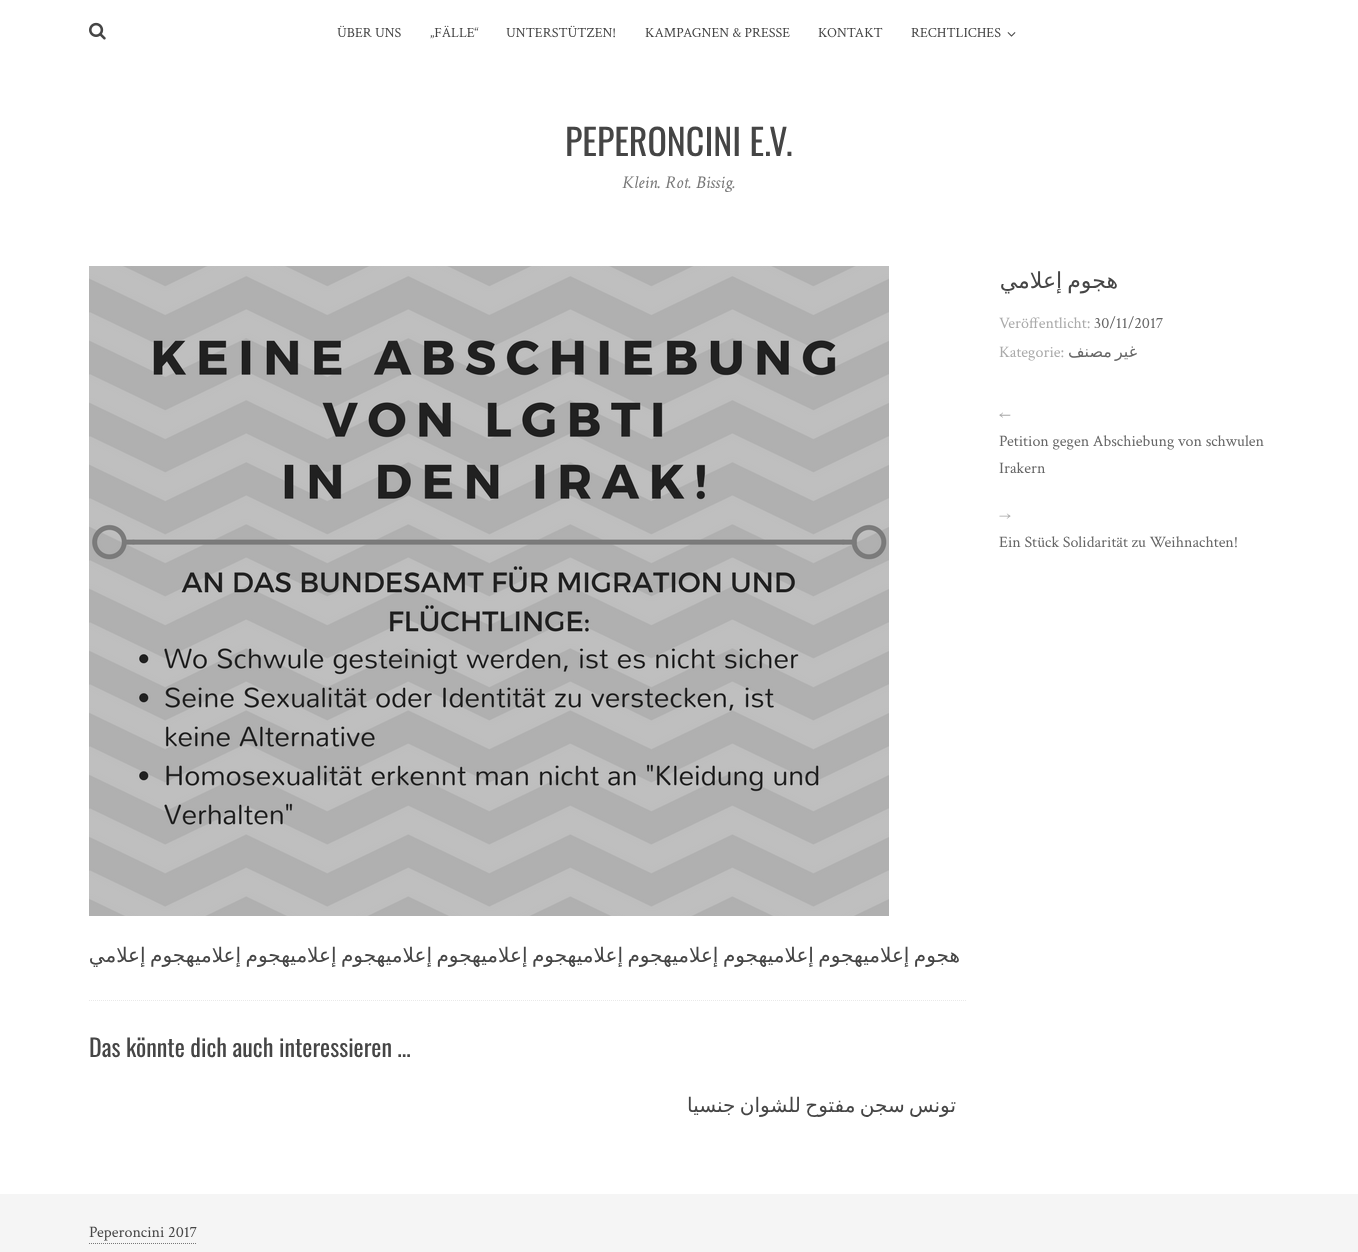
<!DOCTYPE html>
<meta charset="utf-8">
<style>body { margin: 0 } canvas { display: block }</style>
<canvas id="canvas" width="1358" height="1252"></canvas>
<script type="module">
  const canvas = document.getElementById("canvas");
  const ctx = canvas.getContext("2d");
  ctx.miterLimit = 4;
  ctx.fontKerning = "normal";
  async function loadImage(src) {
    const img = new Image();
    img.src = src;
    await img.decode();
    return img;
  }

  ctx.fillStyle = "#ffffff";
  ctx.fillRect(0, 0, 1358, 1252);
  ctx.drawImage(await loadImage("img1.png"), 89, 22, 17, 18);
  ctx.font = "14px Crimson Text";
  ctx.fillStyle = "#454545";
  ctx.fillText("ÜBER UNS", 337, 37);
  ctx.fillText("„FÄLLE“", 430, 37);
  ctx.fillText("UNTERSTÜTZEN!", 506, 37);
  ctx.fillText("KAMPAGNEN & PRESSE", 645, 37);
  ctx.fillText("KONTAKT", 818, 37);
  ctx.fillText("RECHTLICHES", 911, 37);
  ctx.drawImage(await loadImage("img2.png"), 1007, 32, 9, 5);
  ctx.font = "36px Oswald";
  ctx.fillText("PEPERONCINI E.V.", 565, 156);
  ctx.font = "italic 18px Crimson Text";
  ctx.fillStyle = "#777777";
  ctx.fillText("Klein. Rot. Bissig.", 622, 188);
  ctx.wordSpacing = "-2px";
  ctx.direction = "rtl";
  ctx.font = "22px DejaVu Sans";
  ctx.fillStyle = "#454545";
  ctx.fillText("هجوم إعلامي", 1118, 288);
  ctx.wordSpacing = "0px";
  ctx.direction = "ltr";
  ctx.font = "16px Crimson Text";
  ctx.fillStyle = "#aaaaaa";
  ctx.fillText("Veröffentlicht:", 999, 328);
  ctx.fillStyle = "#666666";
  ctx.fillText("30/11/2017", 1094, 328);
  ctx.fillStyle = "#aaaaaa";
  ctx.fillText("Kategorie:", 999, 357);
  ctx.wordSpacing = "-2px";
  ctx.direction = "rtl";
  ctx.font = "16px DejaVu Sans";
  ctx.fillStyle = "#666666";
  ctx.fillText("غير مصنف", 1137, 357);
  ctx.wordSpacing = "0px";
  ctx.direction = "ltr";
  ctx.font = "16px Crimson Text";
  ctx.fillStyle = "#aaaaaa";
  ctx.fillText("←", 999, 419);
  ctx.fillStyle = "#666666";
  ctx.fillText("Petition gegen Abschiebung von schwulen", 999, 446);
  ctx.fillText("Irakern", 999, 473);
  ctx.fillStyle = "#aaaaaa";
  ctx.fillText("→", 999, 520);
  ctx.fillStyle = "#666666";
  ctx.fillText("Ein Stück Solidarität zu Weihnachten!", 999, 547);
  ctx.drawImage(await loadImage("img3.png"), 89, 266, 800, 650);
  ctx.wordSpacing = "-1.9px";
  ctx.direction = "rtl";
  ctx.font = "20px DejaVu Sans";
  ctx.fillStyle = "#454545";
  ctx.fillText("هجوم إعلاميهجوم إعلاميهجوم إعلاميهجوم إعلاميهجوم إعلاميهجوم إعلاميهجوم إعلاميهجوم إعلاميهجوم إعلامي", 960, 962);
  ctx.beginPath();
  ctx.moveTo(89, 1000.5);
  ctx.lineTo(966, 1000.5);
  ctx.strokeStyle = "#e9e9e9";
  ctx.setLineDash([1, 1]);
  ctx.stroke();
  ctx.wordSpacing = "0px";
  ctx.direction = "ltr";
  ctx.font = "24px Oswald";
  ctx.fillText("Das könnte dich auch interessieren …", 89, 1057);
  ctx.wordSpacing = "-2px";
  ctx.direction = "rtl";
  ctx.font = "20px DejaVu Sans";
  ctx.fillText("تونس سجن مفتوح للشوان جنسيا", 956, 1112);
  ctx.fillStyle = "#f5f5f5";
  ctx.fillRect(0, 1194, 1358, 58);
  ctx.wordSpacing = "0px";
  ctx.direction = "ltr";
  ctx.font = "16px Crimson Text";
  ctx.fillStyle = "#454545";
  ctx.fillText("Peperoncini 2017", 89, 1237);
  ctx.beginPath();
  ctx.moveTo(89, 1243.5);
  ctx.lineTo(197, 1243.5);
  ctx.strokeStyle = "#777777";
  ctx.stroke();
</script>
